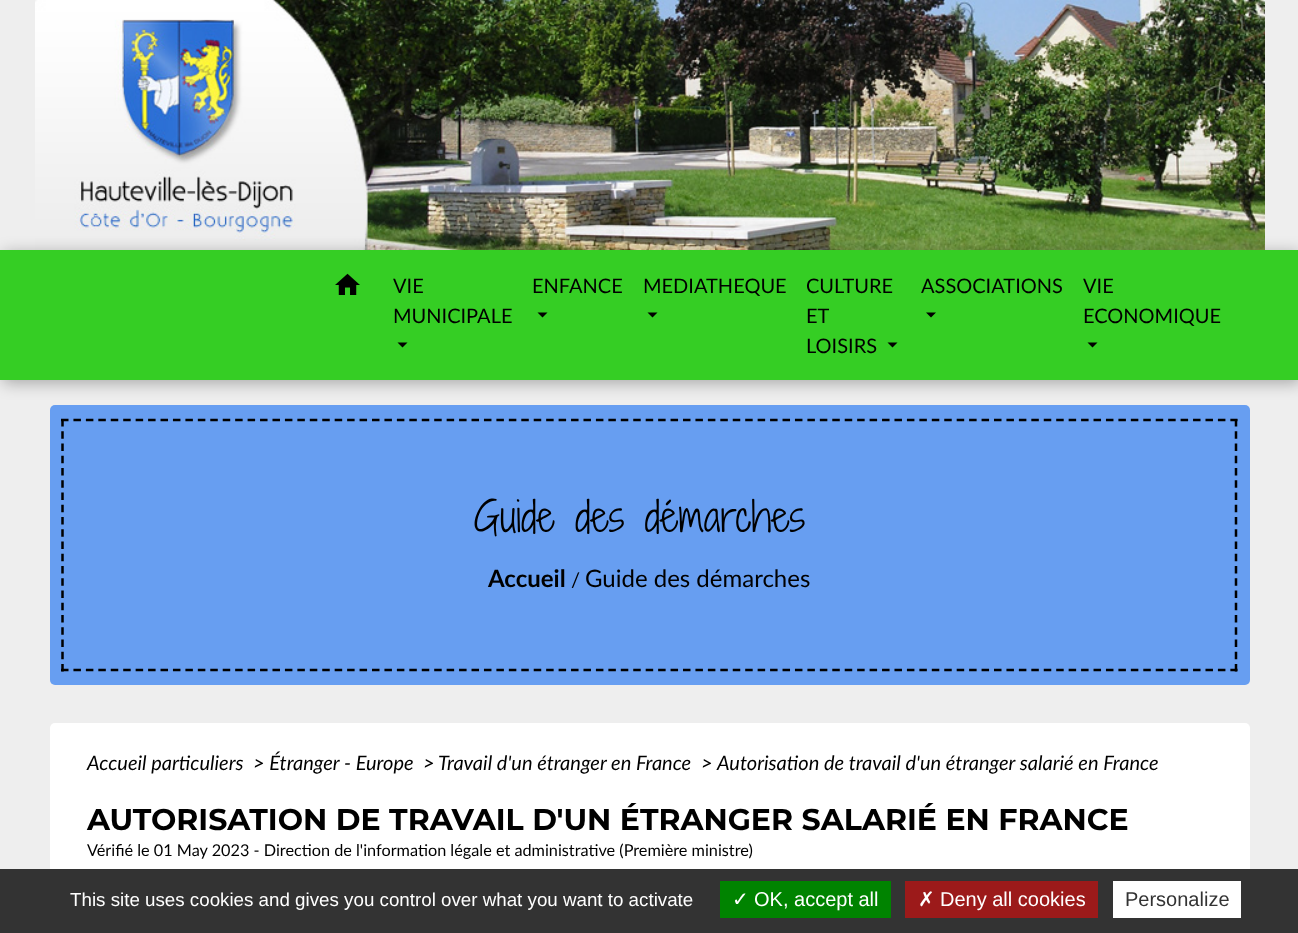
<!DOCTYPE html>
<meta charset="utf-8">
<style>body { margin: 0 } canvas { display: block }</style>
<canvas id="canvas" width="1298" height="933"></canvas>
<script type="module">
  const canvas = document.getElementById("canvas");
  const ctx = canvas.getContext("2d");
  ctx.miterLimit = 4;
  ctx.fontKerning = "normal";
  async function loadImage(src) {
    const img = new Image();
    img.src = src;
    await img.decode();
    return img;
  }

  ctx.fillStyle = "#eeeeee";
  ctx.fillRect(0, 0, 1298, 933);
  ctx.drawImage(await loadImage("img1.png"), 35, 0, 1230, 250);
  ctx.fillStyle = "#679ef1";
  ctx.beginPath();
  ctx.roundRect(50, 405, 1200, 280, 5);
  ctx.fill();
  ctx.fillStyle = "rgba(0, 0, 0, 0.3)";
  ctx.filter = "blur(8px)";
  ctx.beginPath();
  ctx.rect(3, 253, 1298, 130);
  ctx.fill();
  ctx.filter = "none";
  ctx.fillStyle = "#35ce24";
  ctx.fillRect(0, 250, 1298, 130);
  ctx.drawImage(await loadImage("img2.png"), 335, 273, 25, 22);
  ctx.font = "20px Lato";
  ctx.fillStyle = "#000000";
  ctx.fillText("VIE", 393, 293);
  ctx.fillText("MUNICIPALE", 393, 323);
  ctx.beginPath();
  ctx.moveTo(397.5, 342.5);
  ctx.lineTo(407.5, 342.5);
  ctx.lineTo(402.5, 347.5);
  ctx.closePath();
  ctx.fill();
  ctx.fillText("ENFANCE", 532, 293);
  ctx.beginPath();
  ctx.moveTo(537.5, 312.5);
  ctx.lineTo(547.5, 312.5);
  ctx.lineTo(542.5, 317.5);
  ctx.closePath();
  ctx.fill();
  ctx.fillText("MEDIATHEQUE", 643, 293);
  ctx.beginPath();
  ctx.moveTo(647.5, 312.5);
  ctx.lineTo(657.5, 312.5);
  ctx.lineTo(652.5, 317.5);
  ctx.closePath();
  ctx.fill();
  ctx.fillText("CULTURE", 806, 293);
  ctx.fillText("ET", 806, 323);
  ctx.fillText("LOISIRS", 806, 353);
  ctx.beginPath();
  ctx.moveTo(887.5, 342.5);
  ctx.lineTo(897.5, 342.5);
  ctx.lineTo(892.5, 347.5);
  ctx.closePath();
  ctx.fill();
  ctx.fillText("ASSOCIATIONS", 921, 293);
  ctx.beginPath();
  ctx.moveTo(926, 312.5);
  ctx.lineTo(936, 312.5);
  ctx.lineTo(931, 317.5);
  ctx.closePath();
  ctx.fill();
  ctx.fillText("VIE", 1083, 293);
  ctx.fillText("ECONOMIQUE", 1083, 323);
  ctx.beginPath();
  ctx.moveTo(1087.5, 342.5);
  ctx.lineTo(1097.5, 342.5);
  ctx.lineTo(1092.5, 347.5);
  ctx.closePath();
  ctx.fill();
  ctx.beginPath();
  ctx.moveTo(61, 420);
  ctx.lineTo(1237.5, 420);
  ctx.strokeStyle = "#000000";
  ctx.lineWidth = 2.5;
  ctx.setLineDash([7.5, 4.94]);
  ctx.stroke();
  ctx.beginPath();
  ctx.moveTo(1236, 419);
  ctx.lineTo(1236, 671.5);
  ctx.setLineDash([7.5, 4.75]);
  ctx.stroke();
  ctx.beginPath();
  ctx.moveTo(61, 670);
  ctx.lineTo(1237.5, 670);
  ctx.setLineDash([7.5, 4.94]);
  ctx.stroke();
  ctx.beginPath();
  ctx.moveTo(62.5, 419);
  ctx.lineTo(62.5, 671.5);
  ctx.setLineDash([7.5, 4.75]);
  ctx.stroke();
  ctx.font = "300 40px Shadows Into Light Two";
  ctx.fillText("Guide des démarches", 474, 532);
  ctx.font = "bold 24px Lato";
  ctx.fillText("Accueil", 488, 587);
  ctx.font = "20px Lato";
  ctx.fillText("/", 571, 587);
  ctx.font = "24px Lato";
  ctx.fillText("Guide des démarches", 585, 587);
  ctx.fillStyle = "#ffffff";
  ctx.beginPath();
  ctx.roundRect(50, 723, 1200, 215, 5);
  ctx.fill();
  ctx.font = "italic 20px Lato";
  ctx.fillStyle = "#000000";
  ctx.fillText("Accueil particuliers", 87, 770);
  ctx.fillText("> Étranger - Europe", 253, 770);
  ctx.fillText(">", 423, 770);
  ctx.fillText("Travail d'un étranger en France", 438, 770);
  ctx.fillText(">", 701, 770);
  ctx.fillText("Autorisation de travail d'un étranger salarié en France", 717, 770);
  ctx.font = "bold 30px Montserrat";
  ctx.fillText("AUTORISATION DE TRAVAIL D'UN ÉTRANGER SALARIÉ EN FRANCE", 87, 830);
  ctx.font = "16.25px Lato";
  ctx.fillText("Vérifié le 01 May 2023 - Direction de l'information légale et administrative (Première ministre)", 87, 856);
  ctx.fillStyle = "#333333";
  ctx.fillRect(0, 869, 1298, 64);
  ctx.font = "18.75px Liberation Sans";
  ctx.fillStyle = "#ffffff";
  ctx.fillText("This site uses cookies and gives you control over what you want to activate", 70, 906);
  ctx.fillStyle = "#008300";
  ctx.fillRect(720, 881, 171, 37);
  ctx.font = "20px DejaVu Sans";
  ctx.fillStyle = "#ffffff";
  ctx.fillText("✓", 732, 906);
  ctx.font = "20px Liberation Sans";
  ctx.fillText("OK, accept all", 754, 906);
  ctx.fillStyle = "#9c1a1a";
  ctx.fillRect(905, 881, 193, 37);
  ctx.font = "20px DejaVu Sans";
  ctx.fillStyle = "#ffffff";
  ctx.fillText("✗", 918, 906);
  ctx.font = "20px Liberation Sans";
  ctx.fillText("Deny all cookies", 940, 906);
  ctx.fillRect(1113, 881, 128, 37);
  ctx.fillStyle = "#333333";
  ctx.fillText("Personalize", 1125, 906);
</script>
